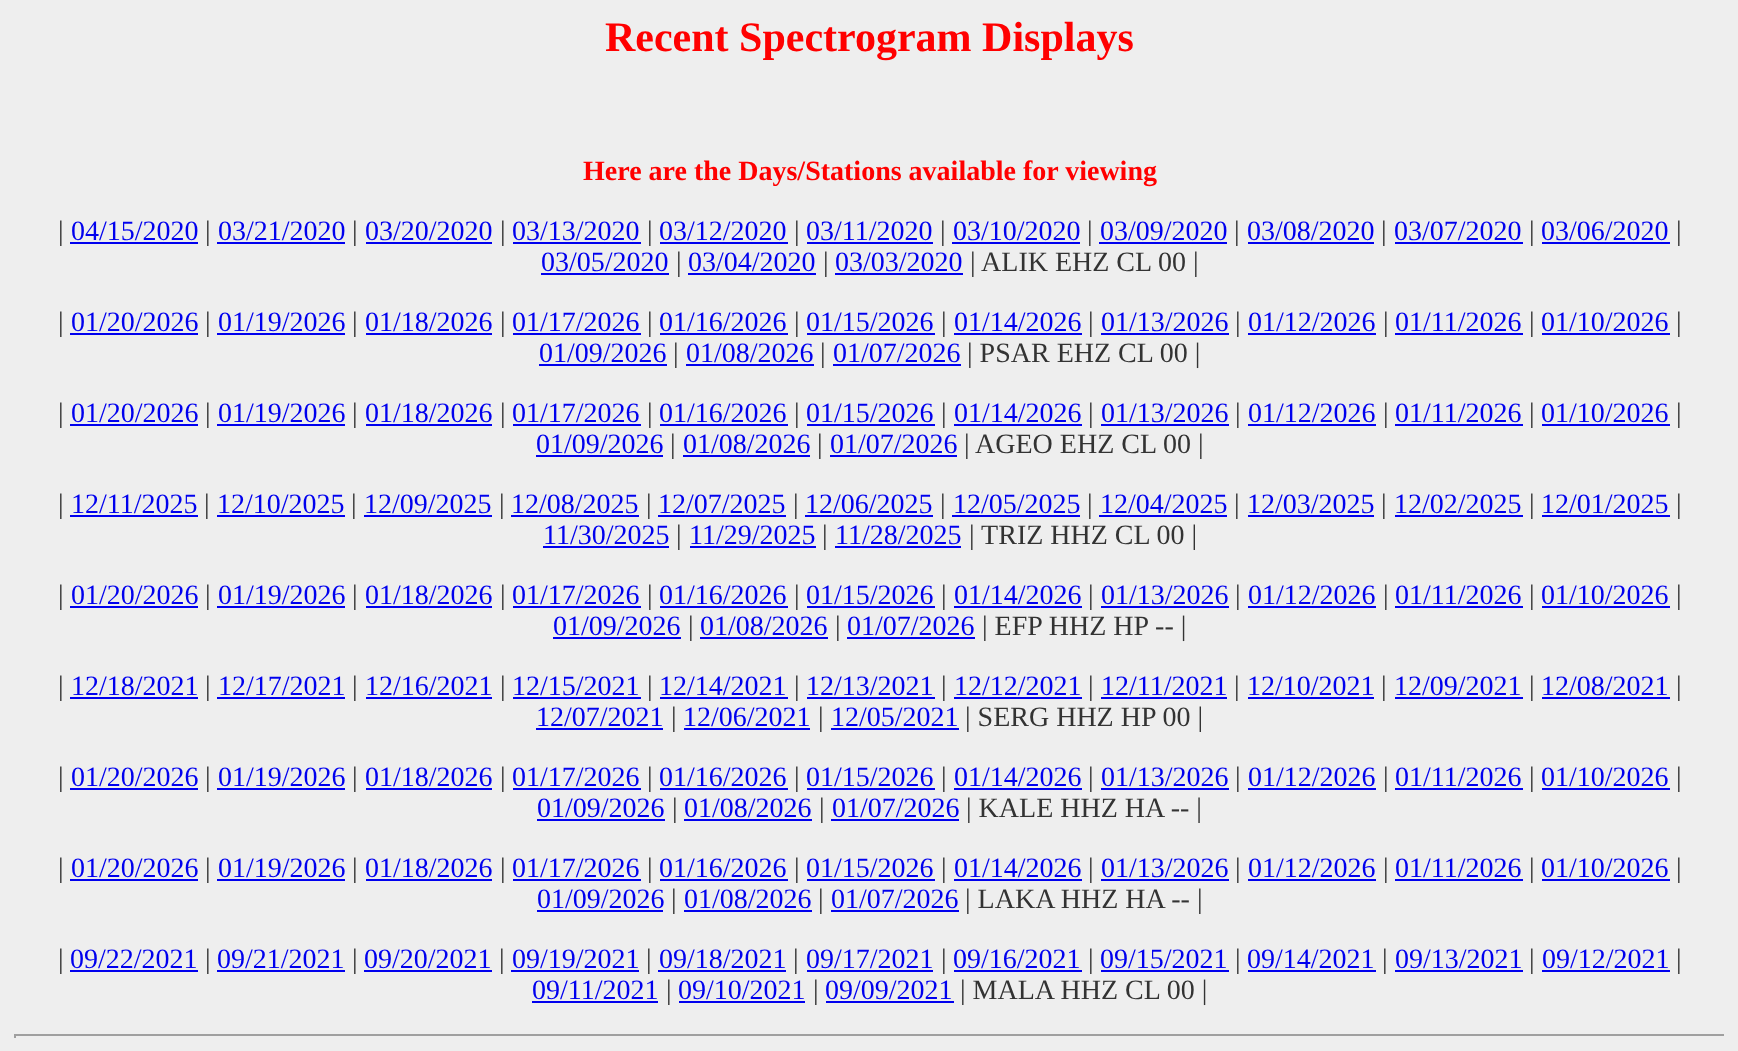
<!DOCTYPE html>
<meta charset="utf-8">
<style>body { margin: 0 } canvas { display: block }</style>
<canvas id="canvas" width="1738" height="1051"></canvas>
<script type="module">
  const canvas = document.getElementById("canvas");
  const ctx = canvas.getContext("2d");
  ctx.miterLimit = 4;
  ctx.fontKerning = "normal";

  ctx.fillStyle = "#eeeeee";
  ctx.fillRect(0, 0, 1738, 1051);
  ctx.font = "bold 42px Liberation Serif";
  ctx.fillStyle = "#ff0000";
  ctx.fillText("Recent Spectrogram Displays", 605, 51);
  ctx.font = "bold 28px Liberation Serif";
  ctx.fillText("Here are the Days/Stations available for viewing", 583, 180);
  ctx.font = "28px Liberation Serif";
  ctx.fillStyle = "#333333";
  ctx.fillText("|", 58, 240);
  ctx.fillStyle = "#0000ee";
  ctx.fillText("04/15/2020", 71, 240);
  ctx.fillRect(70, 242, 128, 2);
  ctx.fillStyle = "#333333";
  ctx.fillText("|", 205, 240);
  ctx.fillStyle = "#0000ee";
  ctx.fillText("03/21/2020", 218, 240);
  ctx.fillRect(217, 242, 128, 2);
  ctx.fillStyle = "#333333";
  ctx.fillText("|", 352, 240);
  ctx.fillStyle = "#0000ee";
  ctx.fillText("03/20/2020", 365, 240);
  ctx.fillRect(366, 242, 126, 2);
  ctx.fillStyle = "#333333";
  ctx.fillText("|", 500, 240);
  ctx.fillStyle = "#0000ee";
  ctx.fillText("03/13/2020", 512, 240);
  ctx.fillRect(513, 242, 128, 2);
  ctx.fillStyle = "#333333";
  ctx.fillText("|", 647, 240);
  ctx.fillStyle = "#0000ee";
  ctx.fillText("03/12/2020", 659, 240);
  ctx.fillRect(660, 242, 128, 2);
  ctx.fillStyle = "#333333";
  ctx.fillText("|", 794, 240);
  ctx.fillStyle = "#0000ee";
  ctx.fillText("03/11/2020", 806, 240);
  ctx.fillRect(807, 242, 126, 2);
  ctx.fillStyle = "#333333";
  ctx.fillText("|", 940, 240);
  ctx.fillStyle = "#0000ee";
  ctx.fillText("03/10/2020", 953, 240);
  ctx.fillRect(952, 242, 128, 2);
  ctx.fillStyle = "#333333";
  ctx.fillText("|", 1087, 240);
  ctx.fillStyle = "#0000ee";
  ctx.fillText("03/09/2020", 1100, 240);
  ctx.fillRect(1099, 242, 128, 2);
  ctx.fillStyle = "#333333";
  ctx.fillText("|", 1234, 240);
  ctx.fillStyle = "#0000ee";
  ctx.fillText("03/08/2020", 1247, 240);
  ctx.fillRect(1248, 242, 126, 2);
  ctx.fillStyle = "#333333";
  ctx.fillText("|", 1381, 240);
  ctx.fillStyle = "#0000ee";
  ctx.fillText("03/07/2020", 1394, 240);
  ctx.fillRect(1395, 242, 128, 2);
  ctx.fillStyle = "#333333";
  ctx.fillText("|", 1529, 240);
  ctx.fillStyle = "#0000ee";
  ctx.fillText("03/06/2020", 1541, 240);
  ctx.fillRect(1542, 242, 128, 2);
  ctx.fillStyle = "#333333";
  ctx.fillText("|", 1676, 240);
  ctx.fillStyle = "#0000ee";
  ctx.fillText("03/05/2020", 541, 271);
  ctx.fillRect(541, 273, 128, 2);
  ctx.fillStyle = "#333333";
  ctx.fillText("|", 676, 271);
  ctx.fillStyle = "#0000ee";
  ctx.fillText("03/04/2020", 688, 271);
  ctx.fillRect(688, 273, 128, 2);
  ctx.fillStyle = "#333333";
  ctx.fillText("|", 823, 271);
  ctx.fillStyle = "#0000ee";
  ctx.fillText("03/03/2020", 835, 271);
  ctx.fillRect(835, 273, 128, 2);
  ctx.fillStyle = "#333333";
  ctx.fillText("| ALIK EHZ CL 00 |", 970, 271);
  ctx.fillText("|", 58, 331);
  ctx.fillStyle = "#0000ee";
  ctx.fillText("01/20/2026", 71, 331);
  ctx.fillRect(70, 333, 128, 2);
  ctx.fillStyle = "#333333";
  ctx.fillText("|", 205, 331);
  ctx.fillStyle = "#0000ee";
  ctx.fillText("01/19/2026", 218, 331);
  ctx.fillRect(217, 333, 128, 2);
  ctx.fillStyle = "#333333";
  ctx.fillText("|", 352, 331);
  ctx.fillStyle = "#0000ee";
  ctx.fillText("01/18/2026", 365, 331);
  ctx.fillRect(366, 333, 126, 2);
  ctx.fillStyle = "#333333";
  ctx.fillText("|", 500, 331);
  ctx.fillStyle = "#0000ee";
  ctx.fillText("01/17/2026", 512, 331);
  ctx.fillRect(513, 333, 128, 2);
  ctx.fillStyle = "#333333";
  ctx.fillText("|", 647, 331);
  ctx.fillStyle = "#0000ee";
  ctx.fillText("01/16/2026", 659, 331);
  ctx.fillRect(660, 333, 128, 2);
  ctx.fillStyle = "#333333";
  ctx.fillText("|", 794, 331);
  ctx.fillStyle = "#0000ee";
  ctx.fillText("01/15/2026", 806, 331);
  ctx.fillRect(807, 333, 128, 2);
  ctx.fillStyle = "#333333";
  ctx.fillText("|", 941, 331);
  ctx.fillStyle = "#0000ee";
  ctx.fillText("01/14/2026", 954, 331);
  ctx.fillRect(954, 333, 128, 2);
  ctx.fillStyle = "#333333";
  ctx.fillText("|", 1088, 331);
  ctx.fillStyle = "#0000ee";
  ctx.fillText("01/13/2026", 1101, 331);
  ctx.fillRect(1101, 333, 128, 2);
  ctx.fillStyle = "#333333";
  ctx.fillText("|", 1235, 331);
  ctx.fillStyle = "#0000ee";
  ctx.fillText("01/12/2026", 1248, 331);
  ctx.fillRect(1248, 333, 128, 2);
  ctx.fillStyle = "#333333";
  ctx.fillText("|", 1383, 331);
  ctx.fillStyle = "#0000ee";
  ctx.fillText("01/11/2026", 1395, 331);
  ctx.fillRect(1395, 333, 128, 2);
  ctx.fillStyle = "#333333";
  ctx.fillText("|", 1529, 331);
  ctx.fillStyle = "#0000ee";
  ctx.fillText("01/10/2026", 1541, 331);
  ctx.fillRect(1542, 333, 128, 2);
  ctx.fillStyle = "#333333";
  ctx.fillText("|", 1676, 331);
  ctx.fillStyle = "#0000ee";
  ctx.fillText("01/09/2026", 539, 362);
  ctx.fillRect(539, 364, 128, 2);
  ctx.fillStyle = "#333333";
  ctx.fillText("|", 673, 362);
  ctx.fillStyle = "#0000ee";
  ctx.fillText("01/08/2026", 686, 362);
  ctx.fillRect(686, 364, 128, 2);
  ctx.fillStyle = "#333333";
  ctx.fillText("|", 820, 362);
  ctx.fillStyle = "#0000ee";
  ctx.fillText("01/07/2026", 833, 362);
  ctx.fillRect(833, 364, 128, 2);
  ctx.fillStyle = "#333333";
  ctx.fillText("| PSAR EHZ CL 00 |", 967, 362);
  ctx.fillText("|", 58, 422);
  ctx.fillStyle = "#0000ee";
  ctx.fillText("01/20/2026", 71, 422);
  ctx.fillRect(70, 424, 128, 2);
  ctx.fillStyle = "#333333";
  ctx.fillText("|", 205, 422);
  ctx.fillStyle = "#0000ee";
  ctx.fillText("01/19/2026", 218, 422);
  ctx.fillRect(217, 424, 128, 2);
  ctx.fillStyle = "#333333";
  ctx.fillText("|", 352, 422);
  ctx.fillStyle = "#0000ee";
  ctx.fillText("01/18/2026", 365, 422);
  ctx.fillRect(366, 424, 126, 2);
  ctx.fillStyle = "#333333";
  ctx.fillText("|", 500, 422);
  ctx.fillStyle = "#0000ee";
  ctx.fillText("01/17/2026", 512, 422);
  ctx.fillRect(513, 424, 128, 2);
  ctx.fillStyle = "#333333";
  ctx.fillText("|", 647, 422);
  ctx.fillStyle = "#0000ee";
  ctx.fillText("01/16/2026", 659, 422);
  ctx.fillRect(660, 424, 128, 2);
  ctx.fillStyle = "#333333";
  ctx.fillText("|", 794, 422);
  ctx.fillStyle = "#0000ee";
  ctx.fillText("01/15/2026", 806, 422);
  ctx.fillRect(807, 424, 128, 2);
  ctx.fillStyle = "#333333";
  ctx.fillText("|", 941, 422);
  ctx.fillStyle = "#0000ee";
  ctx.fillText("01/14/2026", 954, 422);
  ctx.fillRect(954, 424, 128, 2);
  ctx.fillStyle = "#333333";
  ctx.fillText("|", 1088, 422);
  ctx.fillStyle = "#0000ee";
  ctx.fillText("01/13/2026", 1101, 422);
  ctx.fillRect(1101, 424, 128, 2);
  ctx.fillStyle = "#333333";
  ctx.fillText("|", 1235, 422);
  ctx.fillStyle = "#0000ee";
  ctx.fillText("01/12/2026", 1248, 422);
  ctx.fillRect(1248, 424, 128, 2);
  ctx.fillStyle = "#333333";
  ctx.fillText("|", 1383, 422);
  ctx.fillStyle = "#0000ee";
  ctx.fillText("01/11/2026", 1395, 422);
  ctx.fillRect(1395, 424, 128, 2);
  ctx.fillStyle = "#333333";
  ctx.fillText("|", 1529, 422);
  ctx.fillStyle = "#0000ee";
  ctx.fillText("01/10/2026", 1541, 422);
  ctx.fillRect(1542, 424, 128, 2);
  ctx.fillStyle = "#333333";
  ctx.fillText("|", 1676, 422);
  ctx.fillStyle = "#0000ee";
  ctx.fillText("01/09/2026", 536, 453);
  ctx.fillRect(536, 455, 127, 2);
  ctx.fillStyle = "#333333";
  ctx.fillText("|", 670, 453);
  ctx.fillStyle = "#0000ee";
  ctx.fillText("01/08/2026", 683, 453);
  ctx.fillRect(683, 455, 127, 2);
  ctx.fillStyle = "#333333";
  ctx.fillText("|", 817, 453);
  ctx.fillStyle = "#0000ee";
  ctx.fillText("01/07/2026", 830, 453);
  ctx.fillRect(830, 455, 127, 2);
  ctx.fillStyle = "#333333";
  ctx.fillText("| AGEO EHZ CL 00 |", 964, 453);
  ctx.fillText("|", 58, 513);
  ctx.fillStyle = "#0000ee";
  ctx.fillText("12/11/2025", 71, 513);
  ctx.fillRect(70, 515, 128, 2);
  ctx.fillStyle = "#333333";
  ctx.fillText("|", 204, 513);
  ctx.fillStyle = "#0000ee";
  ctx.fillText("12/10/2025", 217, 513);
  ctx.fillRect(217, 515, 128, 2);
  ctx.fillStyle = "#333333";
  ctx.fillText("|", 351, 513);
  ctx.fillStyle = "#0000ee";
  ctx.fillText("12/09/2025", 364, 513);
  ctx.fillRect(364, 515, 128, 2);
  ctx.fillStyle = "#333333";
  ctx.fillText("|", 499, 513);
  ctx.fillStyle = "#0000ee";
  ctx.fillText("12/08/2025", 511, 513);
  ctx.fillRect(511, 515, 128, 2);
  ctx.fillStyle = "#333333";
  ctx.fillText("|", 646, 513);
  ctx.fillStyle = "#0000ee";
  ctx.fillText("12/07/2025", 658, 513);
  ctx.fillRect(658, 515, 128, 2);
  ctx.fillStyle = "#333333";
  ctx.fillText("|", 793, 513);
  ctx.fillStyle = "#0000ee";
  ctx.fillText("12/06/2025", 805, 513);
  ctx.fillRect(805, 515, 128, 2);
  ctx.fillStyle = "#333333";
  ctx.fillText("|", 940, 513);
  ctx.fillStyle = "#0000ee";
  ctx.fillText("12/05/2025", 953, 513);
  ctx.fillRect(952, 515, 128, 2);
  ctx.fillStyle = "#333333";
  ctx.fillText("|", 1087, 513);
  ctx.fillStyle = "#0000ee";
  ctx.fillText("12/04/2025", 1100, 513);
  ctx.fillRect(1099, 515, 128, 2);
  ctx.fillStyle = "#333333";
  ctx.fillText("|", 1234, 513);
  ctx.fillStyle = "#0000ee";
  ctx.fillText("12/03/2025", 1247, 513);
  ctx.fillRect(1248, 515, 126, 2);
  ctx.fillStyle = "#333333";
  ctx.fillText("|", 1381, 513);
  ctx.fillStyle = "#0000ee";
  ctx.fillText("12/02/2025", 1394, 513);
  ctx.fillRect(1395, 515, 128, 2);
  ctx.fillStyle = "#333333";
  ctx.fillText("|", 1529, 513);
  ctx.fillStyle = "#0000ee";
  ctx.fillText("12/01/2025", 1541, 513);
  ctx.fillRect(1542, 515, 128, 2);
  ctx.fillStyle = "#333333";
  ctx.fillText("|", 1676, 513);
  ctx.fillStyle = "#0000ee";
  ctx.fillText("11/30/2025", 543, 544);
  ctx.fillRect(543, 546, 126, 2);
  ctx.fillStyle = "#333333";
  ctx.fillText("|", 676, 544);
  ctx.fillStyle = "#0000ee";
  ctx.fillText("11/29/2025", 689, 544);
  ctx.fillRect(690, 546, 126, 2);
  ctx.fillStyle = "#333333";
  ctx.fillText("|", 822, 544);
  ctx.fillStyle = "#0000ee";
  ctx.fillText("11/28/2025", 835, 544);
  ctx.fillRect(835, 546, 126, 2);
  ctx.fillStyle = "#333333";
  ctx.fillText("| TRIZ HHZ CL 00 |", 969, 544);
  ctx.fillText("|", 58, 604);
  ctx.fillStyle = "#0000ee";
  ctx.fillText("01/20/2026", 71, 604);
  ctx.fillRect(70, 606, 128, 2);
  ctx.fillStyle = "#333333";
  ctx.fillText("|", 205, 604);
  ctx.fillStyle = "#0000ee";
  ctx.fillText("01/19/2026", 218, 604);
  ctx.fillRect(217, 606, 128, 2);
  ctx.fillStyle = "#333333";
  ctx.fillText("|", 352, 604);
  ctx.fillStyle = "#0000ee";
  ctx.fillText("01/18/2026", 365, 604);
  ctx.fillRect(366, 606, 126, 2);
  ctx.fillStyle = "#333333";
  ctx.fillText("|", 500, 604);
  ctx.fillStyle = "#0000ee";
  ctx.fillText("01/17/2026", 512, 604);
  ctx.fillRect(513, 606, 128, 2);
  ctx.fillStyle = "#333333";
  ctx.fillText("|", 647, 604);
  ctx.fillStyle = "#0000ee";
  ctx.fillText("01/16/2026", 659, 604);
  ctx.fillRect(660, 606, 128, 2);
  ctx.fillStyle = "#333333";
  ctx.fillText("|", 794, 604);
  ctx.fillStyle = "#0000ee";
  ctx.fillText("01/15/2026", 806, 604);
  ctx.fillRect(807, 606, 128, 2);
  ctx.fillStyle = "#333333";
  ctx.fillText("|", 941, 604);
  ctx.fillStyle = "#0000ee";
  ctx.fillText("01/14/2026", 954, 604);
  ctx.fillRect(954, 606, 128, 2);
  ctx.fillStyle = "#333333";
  ctx.fillText("|", 1088, 604);
  ctx.fillStyle = "#0000ee";
  ctx.fillText("01/13/2026", 1101, 604);
  ctx.fillRect(1101, 606, 128, 2);
  ctx.fillStyle = "#333333";
  ctx.fillText("|", 1235, 604);
  ctx.fillStyle = "#0000ee";
  ctx.fillText("01/12/2026", 1248, 604);
  ctx.fillRect(1248, 606, 128, 2);
  ctx.fillStyle = "#333333";
  ctx.fillText("|", 1383, 604);
  ctx.fillStyle = "#0000ee";
  ctx.fillText("01/11/2026", 1395, 604);
  ctx.fillRect(1395, 606, 128, 2);
  ctx.fillStyle = "#333333";
  ctx.fillText("|", 1529, 604);
  ctx.fillStyle = "#0000ee";
  ctx.fillText("01/10/2026", 1541, 604);
  ctx.fillRect(1542, 606, 128, 2);
  ctx.fillStyle = "#333333";
  ctx.fillText("|", 1676, 604);
  ctx.fillStyle = "#0000ee";
  ctx.fillText("01/09/2026", 553, 635);
  ctx.fillRect(553, 637, 128, 2);
  ctx.fillStyle = "#333333";
  ctx.fillText("|", 688, 635);
  ctx.fillStyle = "#0000ee";
  ctx.fillText("01/08/2026", 700, 635);
  ctx.fillRect(700, 637, 128, 2);
  ctx.fillStyle = "#333333";
  ctx.fillText("|", 835, 635);
  ctx.fillStyle = "#0000ee";
  ctx.fillText("01/07/2026", 847, 635);
  ctx.fillRect(847, 637, 128, 2);
  ctx.fillStyle = "#333333";
  ctx.fillText("| EFP HHZ HP -- |", 982, 635);
  ctx.fillText("|", 58, 695);
  ctx.fillStyle = "#0000ee";
  ctx.fillText("12/18/2021", 71, 695);
  ctx.fillRect(70, 697, 128, 2);
  ctx.fillStyle = "#333333";
  ctx.fillText("|", 205, 695);
  ctx.fillStyle = "#0000ee";
  ctx.fillText("12/17/2021", 218, 695);
  ctx.fillRect(217, 697, 128, 2);
  ctx.fillStyle = "#333333";
  ctx.fillText("|", 352, 695);
  ctx.fillStyle = "#0000ee";
  ctx.fillText("12/16/2021", 365, 695);
  ctx.fillRect(366, 697, 126, 2);
  ctx.fillStyle = "#333333";
  ctx.fillText("|", 500, 695);
  ctx.fillStyle = "#0000ee";
  ctx.fillText("12/15/2021", 512, 695);
  ctx.fillRect(513, 697, 128, 2);
  ctx.fillStyle = "#333333";
  ctx.fillText("|", 647, 695);
  ctx.fillStyle = "#0000ee";
  ctx.fillText("12/14/2021", 659, 695);
  ctx.fillRect(660, 697, 128, 2);
  ctx.fillStyle = "#333333";
  ctx.fillText("|", 794, 695);
  ctx.fillStyle = "#0000ee";
  ctx.fillText("12/13/2021", 806, 695);
  ctx.fillRect(807, 697, 128, 2);
  ctx.fillStyle = "#333333";
  ctx.fillText("|", 941, 695);
  ctx.fillStyle = "#0000ee";
  ctx.fillText("12/12/2021", 954, 695);
  ctx.fillRect(954, 697, 128, 2);
  ctx.fillStyle = "#333333";
  ctx.fillText("|", 1088, 695);
  ctx.fillStyle = "#0000ee";
  ctx.fillText("12/11/2021", 1101, 695);
  ctx.fillRect(1101, 697, 126, 2);
  ctx.fillStyle = "#333333";
  ctx.fillText("|", 1234, 695);
  ctx.fillStyle = "#0000ee";
  ctx.fillText("12/10/2021", 1247, 695);
  ctx.fillRect(1248, 697, 126, 2);
  ctx.fillStyle = "#333333";
  ctx.fillText("|", 1381, 695);
  ctx.fillStyle = "#0000ee";
  ctx.fillText("12/09/2021", 1394, 695);
  ctx.fillRect(1395, 697, 128, 2);
  ctx.fillStyle = "#333333";
  ctx.fillText("|", 1529, 695);
  ctx.fillStyle = "#0000ee";
  ctx.fillText("12/08/2021", 1541, 695);
  ctx.fillRect(1542, 697, 128, 2);
  ctx.fillStyle = "#333333";
  ctx.fillText("|", 1676, 695);
  ctx.fillStyle = "#0000ee";
  ctx.fillText("12/07/2021", 536, 726);
  ctx.fillRect(536, 728, 127, 2);
  ctx.fillStyle = "#333333";
  ctx.fillText("|", 671, 726);
  ctx.fillStyle = "#0000ee";
  ctx.fillText("12/06/2021", 683, 726);
  ctx.fillRect(684, 728, 126, 2);
  ctx.fillStyle = "#333333";
  ctx.fillText("|", 818, 726);
  ctx.fillStyle = "#0000ee";
  ctx.fillText("12/05/2021", 831, 726);
  ctx.fillRect(831, 728, 128, 2);
  ctx.fillStyle = "#333333";
  ctx.fillText("| SERG HHZ HP 00 |", 965, 726);
  ctx.fillText("|", 58, 786);
  ctx.fillStyle = "#0000ee";
  ctx.fillText("01/20/2026", 71, 786);
  ctx.fillRect(70, 788, 128, 2);
  ctx.fillStyle = "#333333";
  ctx.fillText("|", 205, 786);
  ctx.fillStyle = "#0000ee";
  ctx.fillText("01/19/2026", 218, 786);
  ctx.fillRect(217, 788, 128, 2);
  ctx.fillStyle = "#333333";
  ctx.fillText("|", 352, 786);
  ctx.fillStyle = "#0000ee";
  ctx.fillText("01/18/2026", 365, 786);
  ctx.fillRect(366, 788, 126, 2);
  ctx.fillStyle = "#333333";
  ctx.fillText("|", 500, 786);
  ctx.fillStyle = "#0000ee";
  ctx.fillText("01/17/2026", 512, 786);
  ctx.fillRect(513, 788, 128, 2);
  ctx.fillStyle = "#333333";
  ctx.fillText("|", 647, 786);
  ctx.fillStyle = "#0000ee";
  ctx.fillText("01/16/2026", 659, 786);
  ctx.fillRect(660, 788, 128, 2);
  ctx.fillStyle = "#333333";
  ctx.fillText("|", 794, 786);
  ctx.fillStyle = "#0000ee";
  ctx.fillText("01/15/2026", 806, 786);
  ctx.fillRect(807, 788, 128, 2);
  ctx.fillStyle = "#333333";
  ctx.fillText("|", 941, 786);
  ctx.fillStyle = "#0000ee";
  ctx.fillText("01/14/2026", 954, 786);
  ctx.fillRect(954, 788, 128, 2);
  ctx.fillStyle = "#333333";
  ctx.fillText("|", 1088, 786);
  ctx.fillStyle = "#0000ee";
  ctx.fillText("01/13/2026", 1101, 786);
  ctx.fillRect(1101, 788, 128, 2);
  ctx.fillStyle = "#333333";
  ctx.fillText("|", 1235, 786);
  ctx.fillStyle = "#0000ee";
  ctx.fillText("01/12/2026", 1248, 786);
  ctx.fillRect(1248, 788, 128, 2);
  ctx.fillStyle = "#333333";
  ctx.fillText("|", 1383, 786);
  ctx.fillStyle = "#0000ee";
  ctx.fillText("01/11/2026", 1395, 786);
  ctx.fillRect(1395, 788, 128, 2);
  ctx.fillStyle = "#333333";
  ctx.fillText("|", 1529, 786);
  ctx.fillStyle = "#0000ee";
  ctx.fillText("01/10/2026", 1541, 786);
  ctx.fillRect(1542, 788, 128, 2);
  ctx.fillStyle = "#333333";
  ctx.fillText("|", 1676, 786);
  ctx.fillStyle = "#0000ee";
  ctx.fillText("01/09/2026", 537, 817);
  ctx.fillRect(537, 819, 128, 2);
  ctx.fillStyle = "#333333";
  ctx.fillText("|", 672, 817);
  ctx.fillStyle = "#0000ee";
  ctx.fillText("01/08/2026", 684, 817);
  ctx.fillRect(684, 819, 128, 2);
  ctx.fillStyle = "#333333";
  ctx.fillText("|", 819, 817);
  ctx.fillStyle = "#0000ee";
  ctx.fillText("01/07/2026", 832, 817);
  ctx.fillRect(831, 819, 128, 2);
  ctx.fillStyle = "#333333";
  ctx.fillText("| KALE HHZ HA -- |", 966, 817);
  ctx.fillText("|", 58, 877);
  ctx.fillStyle = "#0000ee";
  ctx.fillText("01/20/2026", 71, 877);
  ctx.fillRect(70, 879, 128, 2);
  ctx.fillStyle = "#333333";
  ctx.fillText("|", 205, 877);
  ctx.fillStyle = "#0000ee";
  ctx.fillText("01/19/2026", 218, 877);
  ctx.fillRect(217, 879, 128, 2);
  ctx.fillStyle = "#333333";
  ctx.fillText("|", 352, 877);
  ctx.fillStyle = "#0000ee";
  ctx.fillText("01/18/2026", 365, 877);
  ctx.fillRect(366, 879, 126, 2);
  ctx.fillStyle = "#333333";
  ctx.fillText("|", 500, 877);
  ctx.fillStyle = "#0000ee";
  ctx.fillText("01/17/2026", 512, 877);
  ctx.fillRect(513, 879, 128, 2);
  ctx.fillStyle = "#333333";
  ctx.fillText("|", 647, 877);
  ctx.fillStyle = "#0000ee";
  ctx.fillText("01/16/2026", 659, 877);
  ctx.fillRect(660, 879, 128, 2);
  ctx.fillStyle = "#333333";
  ctx.fillText("|", 794, 877);
  ctx.fillStyle = "#0000ee";
  ctx.fillText("01/15/2026", 806, 877);
  ctx.fillRect(807, 879, 128, 2);
  ctx.fillStyle = "#333333";
  ctx.fillText("|", 941, 877);
  ctx.fillStyle = "#0000ee";
  ctx.fillText("01/14/2026", 954, 877);
  ctx.fillRect(954, 879, 128, 2);
  ctx.fillStyle = "#333333";
  ctx.fillText("|", 1088, 877);
  ctx.fillStyle = "#0000ee";
  ctx.fillText("01/13/2026", 1101, 877);
  ctx.fillRect(1101, 879, 128, 2);
  ctx.fillStyle = "#333333";
  ctx.fillText("|", 1235, 877);
  ctx.fillStyle = "#0000ee";
  ctx.fillText("01/12/2026", 1248, 877);
  ctx.fillRect(1248, 879, 128, 2);
  ctx.fillStyle = "#333333";
  ctx.fillText("|", 1383, 877);
  ctx.fillStyle = "#0000ee";
  ctx.fillText("01/11/2026", 1395, 877);
  ctx.fillRect(1395, 879, 128, 2);
  ctx.fillStyle = "#333333";
  ctx.fillText("|", 1529, 877);
  ctx.fillStyle = "#0000ee";
  ctx.fillText("01/10/2026", 1541, 877);
  ctx.fillRect(1542, 879, 128, 2);
  ctx.fillStyle = "#333333";
  ctx.fillText("|", 1676, 877);
  ctx.fillStyle = "#0000ee";
  ctx.fillText("01/09/2026", 537, 908);
  ctx.fillRect(537, 910, 126, 2);
  ctx.fillStyle = "#333333";
  ctx.fillText("|", 671, 908);
  ctx.fillStyle = "#0000ee";
  ctx.fillText("01/08/2026", 684, 908);
  ctx.fillRect(684, 910, 128, 2);
  ctx.fillStyle = "#333333";
  ctx.fillText("|", 818, 908);
  ctx.fillStyle = "#0000ee";
  ctx.fillText("01/07/2026", 831, 908);
  ctx.fillRect(831, 910, 128, 2);
  ctx.fillStyle = "#333333";
  ctx.fillText("| LAKA HHZ HA -- |", 965, 908);
  ctx.fillText("|", 58, 968);
  ctx.fillStyle = "#0000ee";
  ctx.fillText("09/22/2021", 70, 968);
  ctx.fillRect(70, 970, 128, 2);
  ctx.fillStyle = "#333333";
  ctx.fillText("|", 205, 968);
  ctx.fillStyle = "#0000ee";
  ctx.fillText("09/21/2021", 217, 968);
  ctx.fillRect(217, 970, 128, 2);
  ctx.fillStyle = "#333333";
  ctx.fillText("|", 352, 968);
  ctx.fillStyle = "#0000ee";
  ctx.fillText("09/20/2021", 364, 968);
  ctx.fillRect(364, 970, 128, 2);
  ctx.fillStyle = "#333333";
  ctx.fillText("|", 499, 968);
  ctx.fillStyle = "#0000ee";
  ctx.fillText("09/19/2021", 512, 968);
  ctx.fillRect(511, 970, 128, 2);
  ctx.fillStyle = "#333333";
  ctx.fillText("|", 646, 968);
  ctx.fillStyle = "#0000ee";
  ctx.fillText("09/18/2021", 659, 968);
  ctx.fillRect(658, 970, 128, 2);
  ctx.fillStyle = "#333333";
  ctx.fillText("|", 793, 968);
  ctx.fillStyle = "#0000ee";
  ctx.fillText("09/17/2021", 806, 968);
  ctx.fillRect(807, 970, 126, 2);
  ctx.fillStyle = "#333333";
  ctx.fillText("|", 941, 968);
  ctx.fillStyle = "#0000ee";
  ctx.fillText("09/16/2021", 953, 968);
  ctx.fillRect(954, 970, 128, 2);
  ctx.fillStyle = "#333333";
  ctx.fillText("|", 1088, 968);
  ctx.fillStyle = "#0000ee";
  ctx.fillText("09/15/2021", 1100, 968);
  ctx.fillRect(1101, 970, 128, 2);
  ctx.fillStyle = "#333333";
  ctx.fillText("|", 1235, 968);
  ctx.fillStyle = "#0000ee";
  ctx.fillText("09/14/2021", 1247, 968);
  ctx.fillRect(1248, 970, 128, 2);
  ctx.fillStyle = "#333333";
  ctx.fillText("|", 1382, 968);
  ctx.fillStyle = "#0000ee";
  ctx.fillText("09/13/2021", 1395, 968);
  ctx.fillRect(1395, 970, 128, 2);
  ctx.fillStyle = "#333333";
  ctx.fillText("|", 1529, 968);
  ctx.fillStyle = "#0000ee";
  ctx.fillText("09/12/2021", 1542, 968);
  ctx.fillRect(1542, 970, 128, 2);
  ctx.fillStyle = "#333333";
  ctx.fillText("|", 1676, 968);
  ctx.fillStyle = "#0000ee";
  ctx.fillText("09/11/2021", 532, 999);
  ctx.fillRect(532, 1001, 126, 2);
  ctx.fillStyle = "#333333";
  ctx.fillText("|", 666, 999);
  ctx.fillStyle = "#0000ee";
  ctx.fillText("09/10/2021", 678, 999);
  ctx.fillRect(679, 1001, 126, 2);
  ctx.fillStyle = "#333333";
  ctx.fillText("|", 813, 999);
  ctx.fillStyle = "#0000ee";
  ctx.fillText("09/09/2021", 825, 999);
  ctx.fillRect(826, 1001, 128, 2);
  ctx.fillStyle = "#333333";
  ctx.fillText("| MALA HHZ CL 00 |", 960, 999);
  ctx.fillStyle = "#9f9f9f";
  ctx.fillRect(14, 1034, 1712, 2);
  ctx.fillStyle = "#eeeeee";
  ctx.fillRect(1724, 1034, 2, 4);
  ctx.fillStyle = "#9f9f9f";
  ctx.fillRect(14, 1034, 2, 4);
</script>
